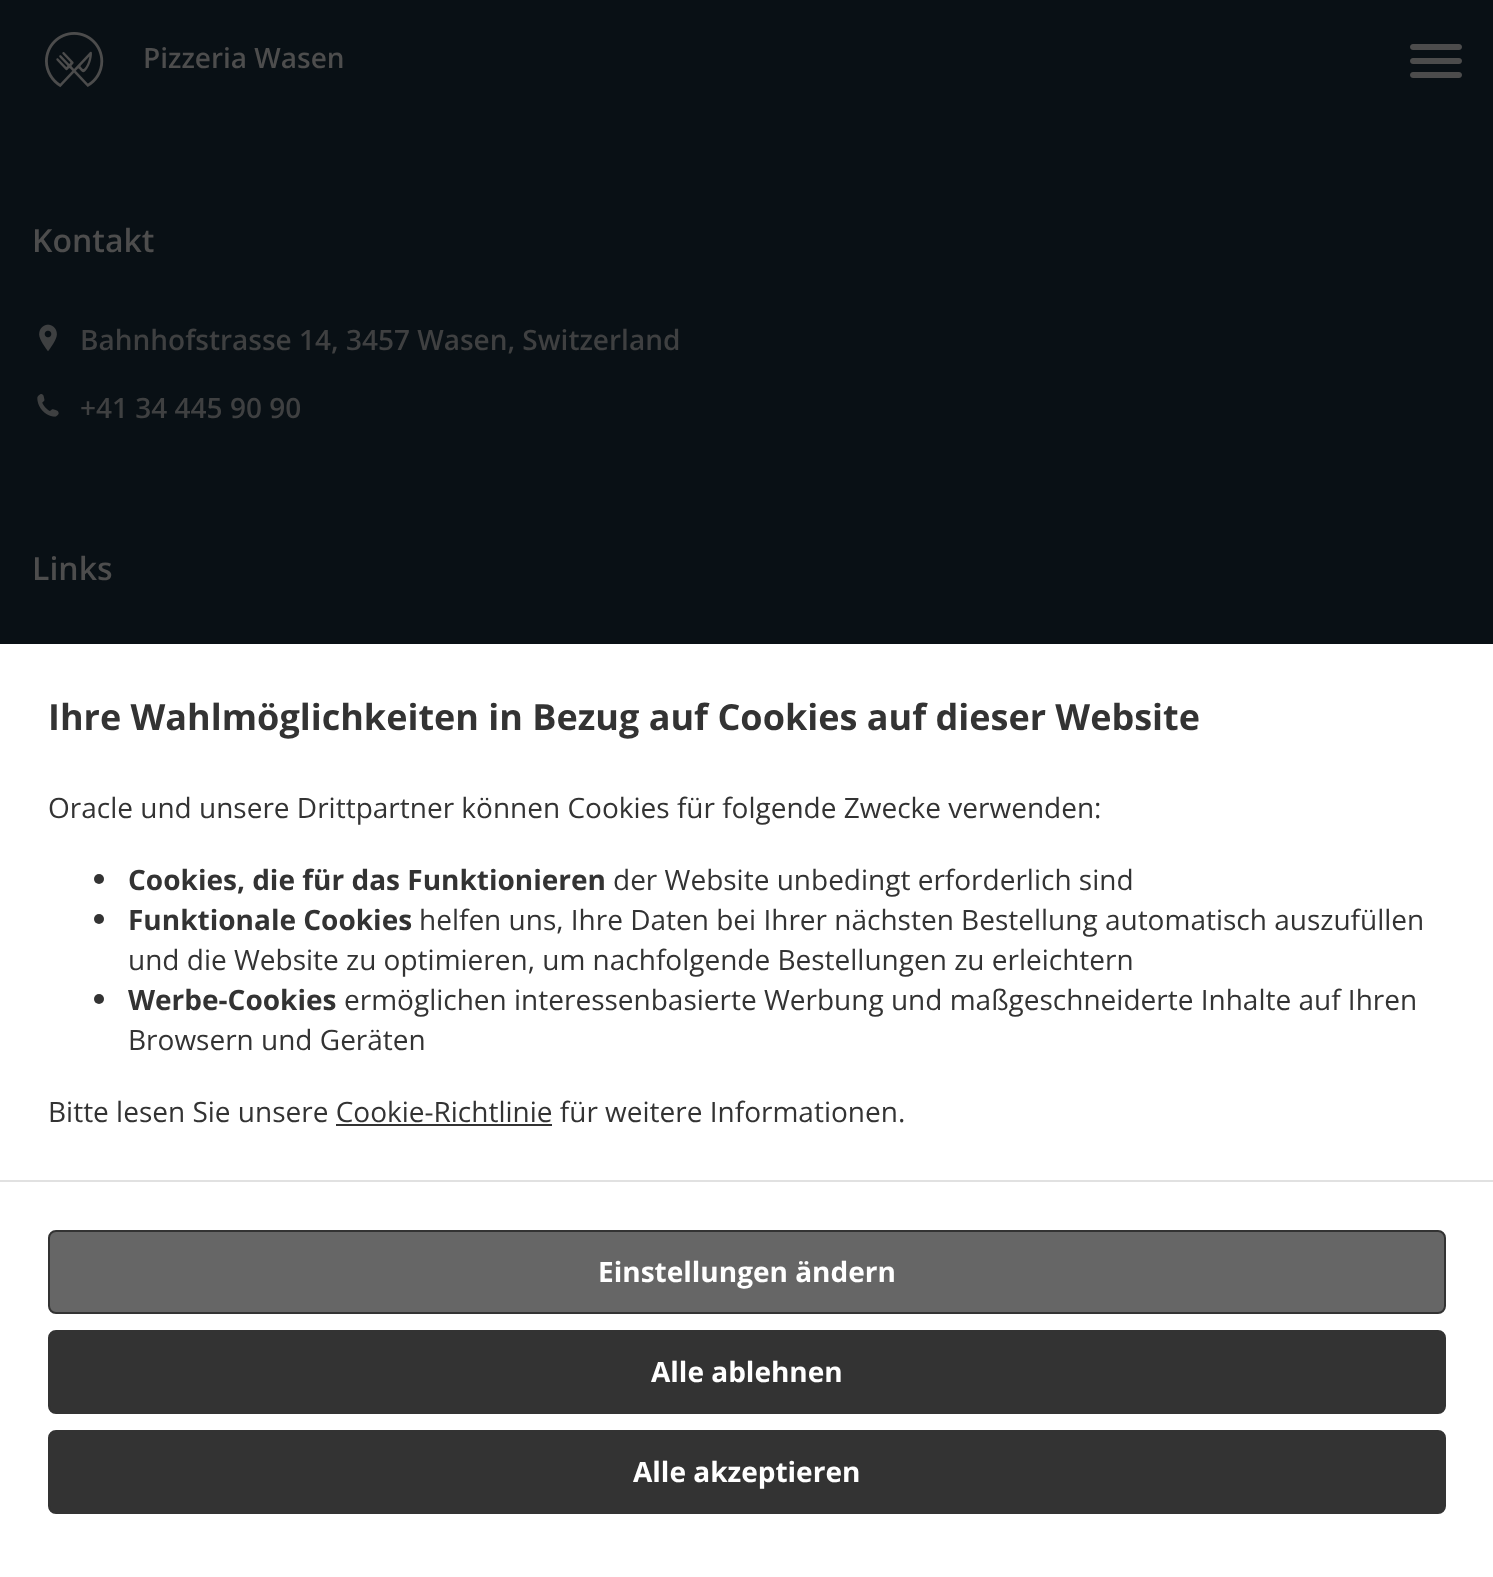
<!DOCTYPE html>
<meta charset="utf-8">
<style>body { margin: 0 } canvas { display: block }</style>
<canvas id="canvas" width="1493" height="1577"></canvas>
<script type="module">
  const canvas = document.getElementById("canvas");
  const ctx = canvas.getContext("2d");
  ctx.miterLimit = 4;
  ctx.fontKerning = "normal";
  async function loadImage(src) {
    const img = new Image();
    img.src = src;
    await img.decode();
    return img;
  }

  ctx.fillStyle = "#091015";
  ctx.fillRect(0, 0, 1493, 1577);
  ctx.drawImage(await loadImage("img1.png"), 45, 32, 59, 56);
  ctx.font = "600 28px Open Sans";
  ctx.fillStyle = "#4d4d4d";
  ctx.fillText("Pizzeria Wasen", 143, 68);
  ctx.drawImage(await loadImage("img2.png"), 1410, 44, 52, 34);
  ctx.font = "600 32px Open Sans";
  ctx.fillText("Kontakt", 32, 252);
  ctx.drawImage(await loadImage("img3.png"), 39, 324, 18, 28);
  ctx.font = "600 28px Open Sans";
  ctx.fillStyle = "#3f4041";
  ctx.fillText("Bahnhofstrasse 14, 3457 Wasen, Switzerland", 80, 350);
  ctx.drawImage(await loadImage("img4.png"), 37, 394, 22, 23);
  ctx.fillText("+41 34 445 90 90", 80, 418);
  ctx.font = "600 32px Open Sans";
  ctx.fillStyle = "#4d4d4d";
  ctx.fillText("Links", 32, 580);
  ctx.fillStyle = "#ffffff";
  ctx.fillRect(0, 644, 1493, 933);
  ctx.font = "bold 36px Open Sans";
  ctx.fillStyle = "#333333";
  ctx.fillText("Ihre Wahlmöglichkeiten in Bezug auf Cookies auf dieser Website", 48, 730);
  ctx.font = "28px Open Sans";
  ctx.fillText("Oracle und unsere Drittpartner können Cookies für folgende Zwecke verwenden:", 48, 818);
  ctx.beginPath();
  ctx.arc(99, 879, 5, 0, Math.PI * 2);
  ctx.fill();
  ctx.font = "bold 28px Open Sans";
  ctx.fillText("Cookies, die für das Funktionieren", 128, 890);
  ctx.font = "28px Open Sans";
  ctx.fillText("der Website unbedingt erforderlich sind", 613, 890);
  ctx.beginPath();
  ctx.arc(99, 919, 5, 0, Math.PI * 2);
  ctx.fill();
  ctx.font = "bold 28px Open Sans";
  ctx.fillText("Funktionale Cookies", 128, 930);
  ctx.font = "28px Open Sans";
  ctx.fillText("helfen uns, Ihre Daten bei Ihrer nächsten Bestellung automatisch auszufüllen", 419, 930);
  ctx.fillText("und die Website zu optimieren, um nachfolgende Bestellungen zu erleichtern", 128, 970);
  ctx.beginPath();
  ctx.arc(99, 999, 5, 0, Math.PI * 2);
  ctx.fill();
  ctx.font = "bold 28px Open Sans";
  ctx.fillText("Werbe-Cookies", 128, 1010);
  ctx.font = "28px Open Sans";
  ctx.fillText("ermöglichen interessenbasierte Werbung und maßgeschneiderte Inhalte auf Ihren", 344, 1010);
  ctx.fillText("Browsern und Geräten", 128, 1050);
  ctx.fillText("Bitte lesen Sie unsere Cookie-Richtlinie für weitere Informationen.", 48, 1122);
  ctx.fillRect(336, 1124, 216, 2);
  ctx.fillStyle = "#e1e1e1";
  ctx.fillRect(0, 1180, 1493, 2);
  ctx.fillStyle = "#666666";
  ctx.beginPath();
  ctx.roundRect(49, 1231, 1396, 82, 7);
  ctx.fill();
  ctx.strokeStyle = "#333333";
  ctx.lineWidth = 2;
  ctx.stroke();
  ctx.font = "bold 28px Open Sans";
  ctx.fillStyle = "#ffffff";
  ctx.fillText("Einstellungen ändern", 598, 1282);
  ctx.fillStyle = "#333333";
  ctx.beginPath();
  ctx.roundRect(49, 1331, 1396, 82, 7);
  ctx.fill();
  ctx.stroke();
  ctx.fillStyle = "#ffffff";
  ctx.fillText("Alle ablehnen", 651, 1382);
  ctx.fillStyle = "#333333";
  ctx.beginPath();
  ctx.roundRect(49, 1431, 1396, 82, 7);
  ctx.fill();
  ctx.stroke();
  ctx.fillStyle = "#ffffff";
  ctx.fillText("Alle akzeptieren", 633, 1482);
</script>
